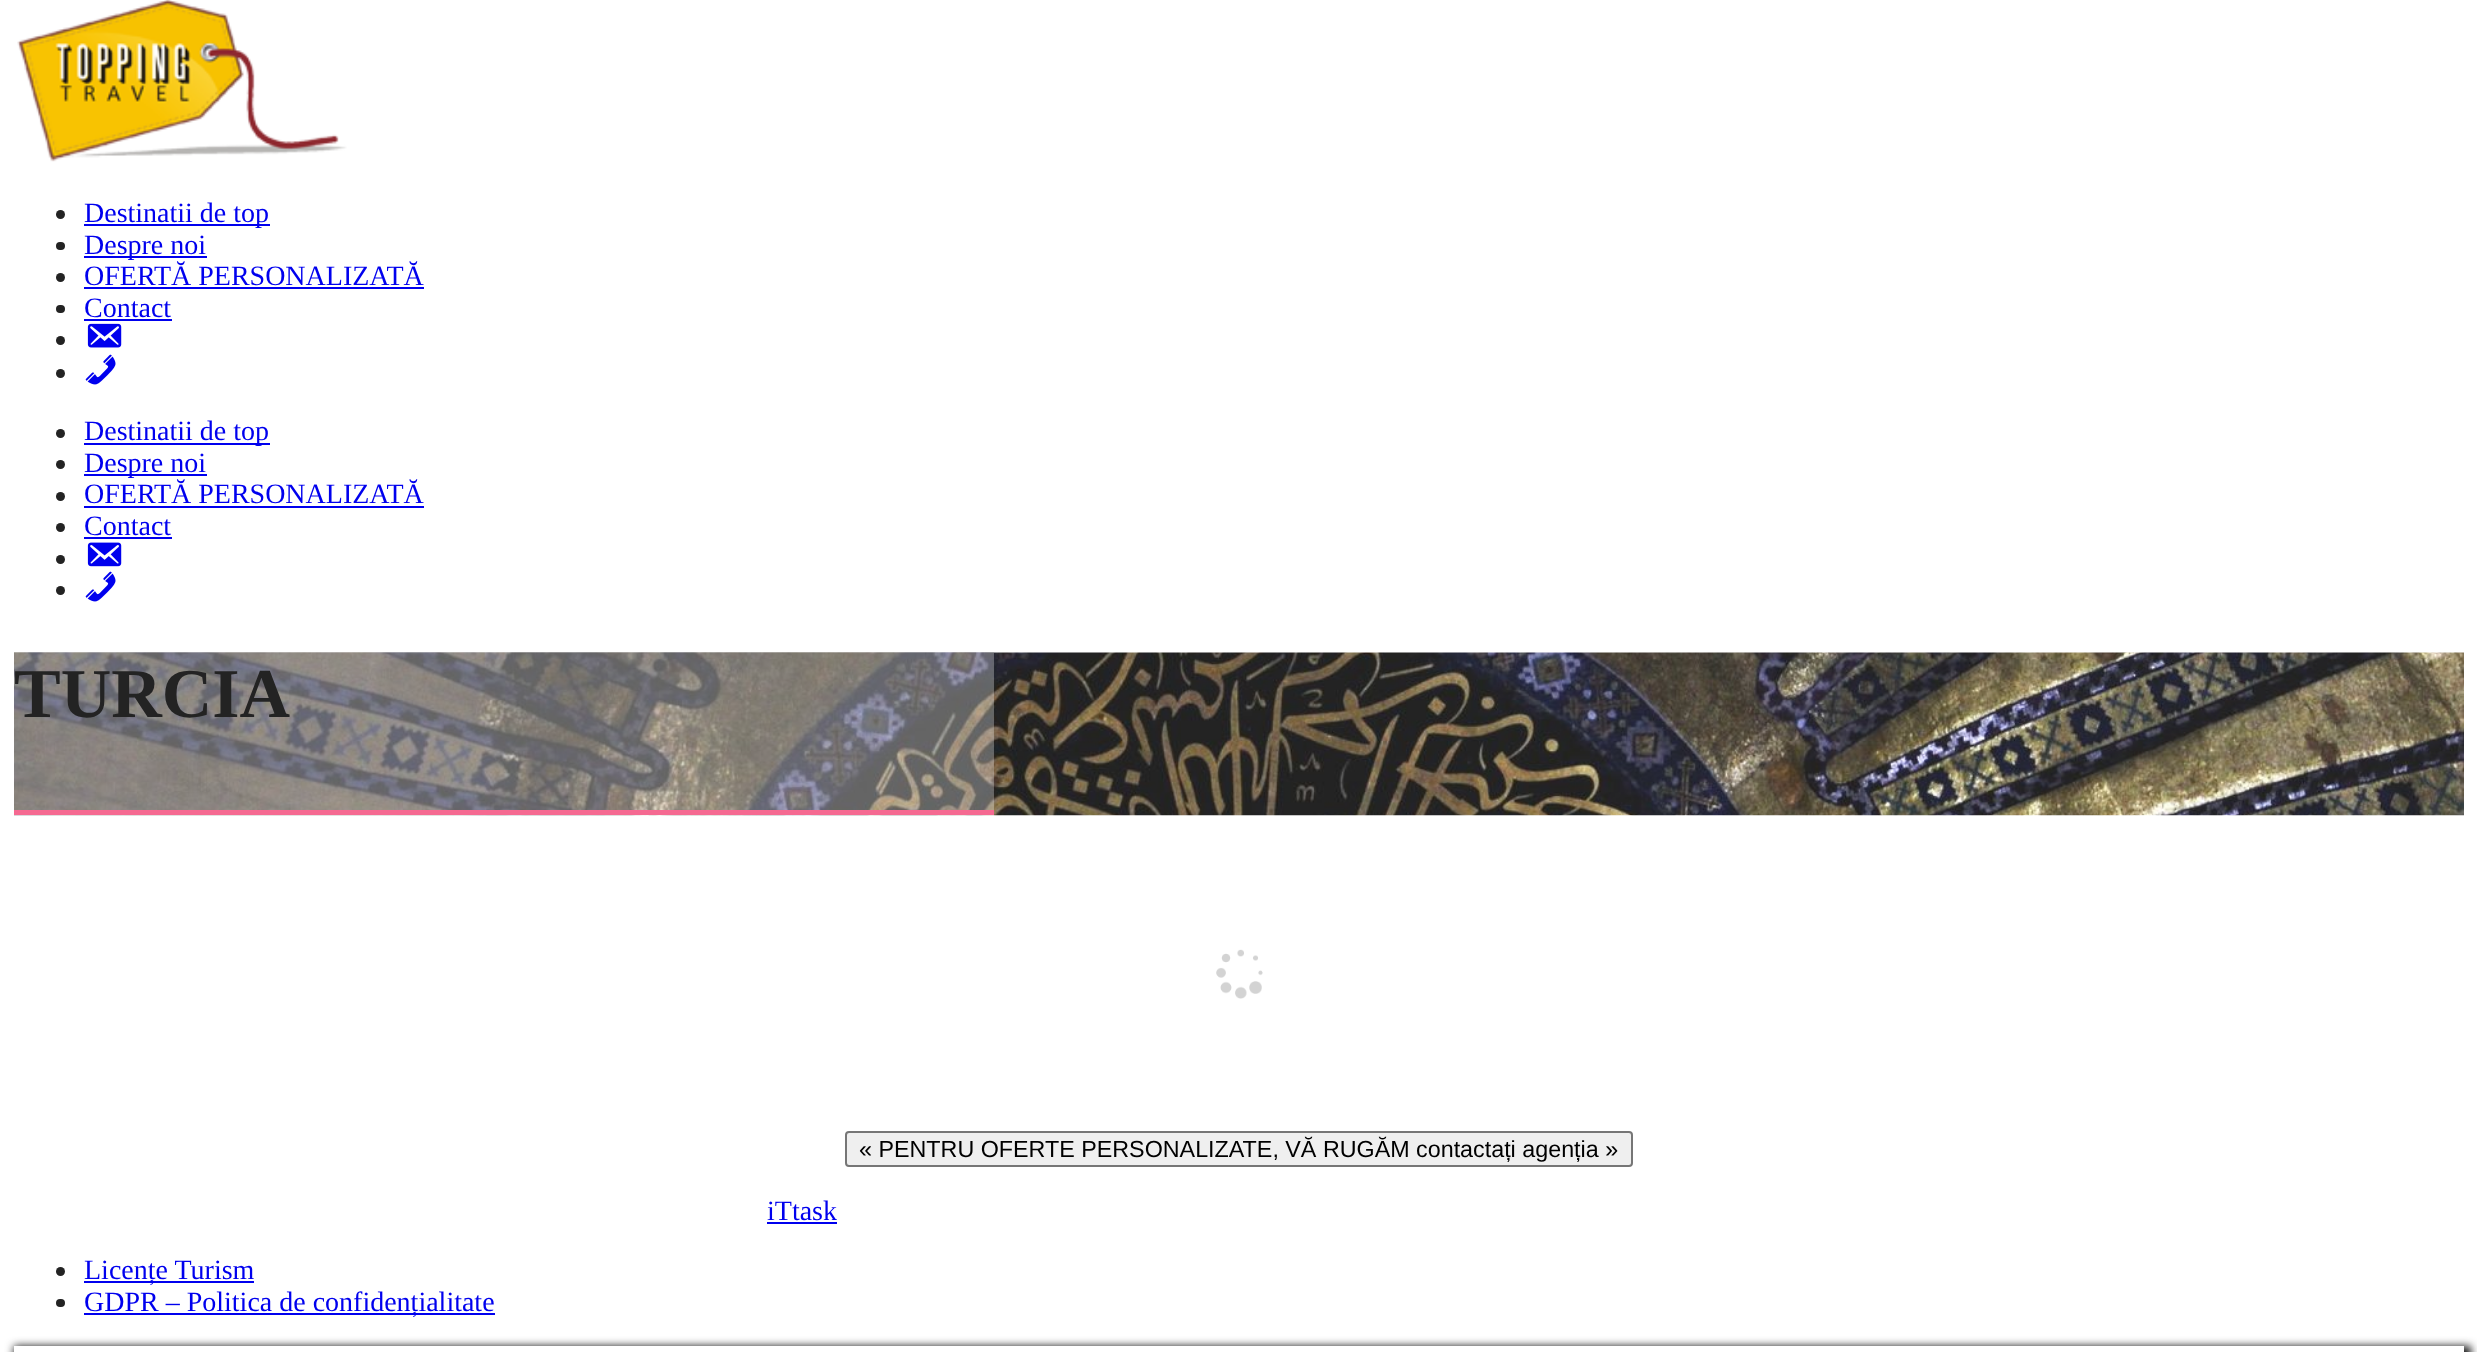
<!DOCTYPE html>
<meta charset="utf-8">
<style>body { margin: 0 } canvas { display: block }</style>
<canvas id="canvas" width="2477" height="1352"></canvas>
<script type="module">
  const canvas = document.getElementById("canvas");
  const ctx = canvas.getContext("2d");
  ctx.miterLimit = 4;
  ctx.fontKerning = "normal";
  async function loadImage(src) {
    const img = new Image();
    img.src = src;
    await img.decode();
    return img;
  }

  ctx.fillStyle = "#ffffff";
  ctx.fillRect(0, 0, 2477, 1352);
  ctx.drawImage(await loadImage("img1.png"), 17, 0, 330, 162);
  ctx.fillStyle = "#232323";
  ctx.beginPath();
  ctx.arc(60.5, 214.5, 4.5, 0, Math.PI * 2);
  ctx.fill();
  ctx.fillStyle = "#0000ee";
  ctx.fillRect(84, 224, 186, 2);
  ctx.font = "28px Liberation Serif";
  ctx.fillText("Destinatii de top", 84, 222);
  ctx.fillStyle = "#232323";
  ctx.beginPath();
  ctx.roundRect(56, 242, 9, 8, 4);
  ctx.fill();
  ctx.fillStyle = "#0000ee";
  ctx.fillRect(84, 256, 123, 2);
  ctx.fillText("Despre noi", 84, 254);
  ctx.fillStyle = "#232323";
  ctx.beginPath();
  ctx.arc(60.5, 277.5, 4.5, 0, Math.PI * 2);
  ctx.fill();
  ctx.fillStyle = "#0000ee";
  ctx.fillText("OFERTĂ PERSONALIZATĂ", 84, 285);
  ctx.fillRect(84, 287, 340, 2);
  ctx.fillStyle = "#232323";
  ctx.beginPath();
  ctx.roundRect(56, 305, 9, 8, 4);
  ctx.fill();
  ctx.fillStyle = "#0000ee";
  ctx.fillText("Contact", 84, 317);
  ctx.fillRect(84, 319, 88, 2);
  ctx.fillStyle = "#232323";
  ctx.beginPath();
  ctx.arc(60.5, 340.5, 4.5, 0, Math.PI * 2);
  ctx.fill();
  ctx.drawImage(await loadImage("img2.png"), 87, 323, 35, 25);
  ctx.beginPath();
  ctx.arc(60.5, 373.5, 4.5, 0, Math.PI * 2);
  ctx.fill();
  ctx.drawImage(await loadImage("img3.png"), 85, 354, 31, 31);
  ctx.beginPath();
  ctx.arc(60.5, 433.5, 4.5, 0, Math.PI * 2);
  ctx.fill();
  ctx.fillStyle = "#0000ee";
  ctx.fillRect(84, 443, 186, 2);
  ctx.fillText("Destinatii de top", 84, 440);
  ctx.fillStyle = "#232323";
  ctx.beginPath();
  ctx.arc(60.5, 464.5, 4.5, 0, Math.PI * 2);
  ctx.fill();
  ctx.fillStyle = "#0000ee";
  ctx.fillRect(84, 474, 123, 2);
  ctx.fillText("Despre noi", 84, 472);
  ctx.fillStyle = "#232323";
  ctx.beginPath();
  ctx.arc(60.5, 496.5, 4.5, 0, Math.PI * 2);
  ctx.fill();
  ctx.fillStyle = "#0000ee";
  ctx.fillText("OFERTĂ PERSONALIZATĂ", 84, 503);
  ctx.fillRect(84, 506, 340, 2);
  ctx.fillStyle = "#232323";
  ctx.beginPath();
  ctx.arc(60.5, 527.5, 4.5, 0, Math.PI * 2);
  ctx.fill();
  ctx.fillStyle = "#0000ee";
  ctx.fillText("Contact", 84, 535);
  ctx.fillRect(84, 537, 88, 2);
  ctx.fillStyle = "#232323";
  ctx.beginPath();
  ctx.arc(60.5, 559.5, 4.5, 0, Math.PI * 2);
  ctx.fill();
  ctx.drawImage(await loadImage("img4.png"), 87, 542, 35, 25);
  ctx.beginPath();
  ctx.arc(60.5, 590.5, 4.5, 0, Math.PI * 2);
  ctx.fill();
  ctx.drawImage(await loadImage("img3.png"), 85, 571, 31, 31);
  ctx.drawImage(await loadImage("img5.png"), 14, 652, 2450, 164);
  ctx.fillStyle = "rgba(255, 255, 255, 0.3)";
  ctx.fillRect(14, 653, 980, 163);
  ctx.fillStyle = "#f56991";
  ctx.fillRect(14, 810, 980, 5);
  ctx.font = "bold 70px Liberation Serif";
  ctx.fillStyle = "#232323";
  ctx.fillText("TURCIA", 14, 717);
  ctx.drawImage(await loadImage("img6.png"), 1216, 949, 47, 50);
  ctx.fillStyle = "#efefef";
  ctx.beginPath();
  ctx.roundRect(846, 1132, 786, 34, 3);
  ctx.fill();
  ctx.strokeStyle = "#767676";
  ctx.lineWidth = 2;
  ctx.stroke();
  ctx.font = "23.3px Liberation Sans";
  ctx.fillStyle = "#000000";
  ctx.fillText("« PENTRU OFERTE PERSONALIZATE, VĂ RUGĂM contactați agenția »", 859, 1157);
  ctx.font = "28px Liberation Serif";
  ctx.fillStyle = "#0000ee";
  ctx.fillText("iTtask", 767, 1220);
  ctx.fillRect(767, 1222, 70, 2);
  ctx.fillStyle = "#232323";
  ctx.beginPath();
  ctx.arc(60.5, 1271.5, 4.5, 0, Math.PI * 2);
  ctx.fill();
  ctx.fillStyle = "#0000ee";
  ctx.fillRect(84, 1281, 170, 2);
  ctx.fillText("Licențe Turism", 84, 1279);
  ctx.fillStyle = "#232323";
  ctx.beginPath();
  ctx.roundRect(56, 1299, 9, 8, 4);
  ctx.fill();
  ctx.fillStyle = "#0000ee";
  ctx.fillRect(84, 1313, 411, 2);
  ctx.fillText("GDPR – Politica de confidențialitate", 84, 1311);
  ctx.save();
  ctx.beginPath();
  ctx.moveTo(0, 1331);
  ctx.lineTo(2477, 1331);
  ctx.lineTo(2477, 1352);
  ctx.lineTo(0, 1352);
  ctx.closePath();
  ctx.moveTo(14, 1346);
  ctx.lineTo(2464, 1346);
  ctx.lineTo(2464, 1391);
  ctx.lineTo(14, 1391);
  ctx.closePath();
  ctx.clip("evenodd");
  ctx.fillStyle = "#161616";
  ctx.filter = "blur(4.5px)";
  ctx.beginPath();
  ctx.rect(14, 1346, 2457, 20);
  ctx.fill();
  ctx.filter = "none";
  ctx.restore();
</script>
